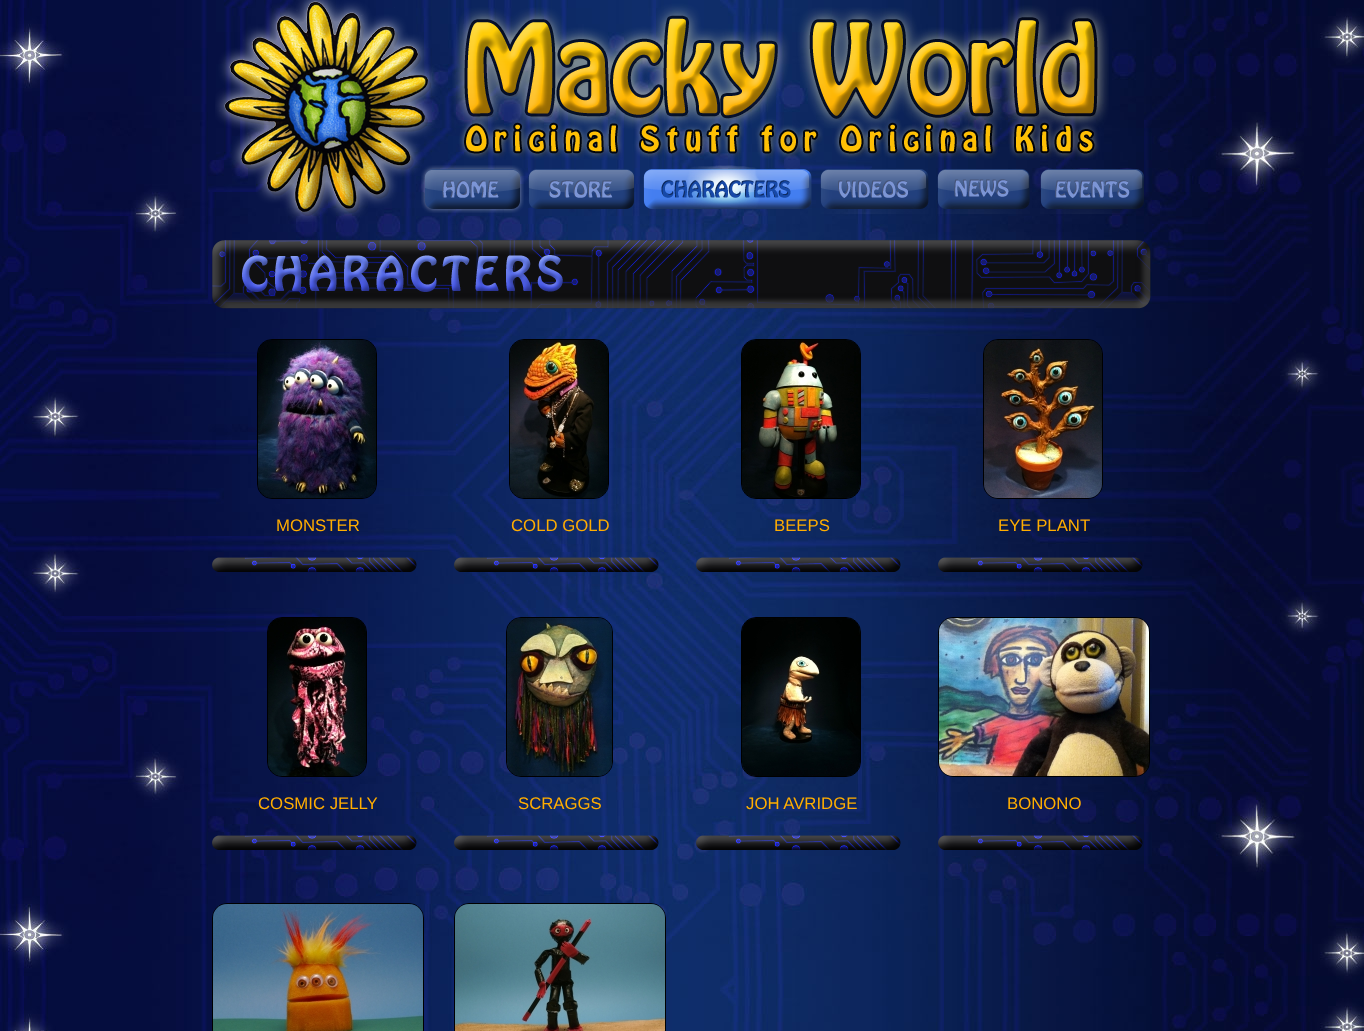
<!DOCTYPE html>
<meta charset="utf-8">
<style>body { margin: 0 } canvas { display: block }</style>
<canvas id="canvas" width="1364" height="1031"></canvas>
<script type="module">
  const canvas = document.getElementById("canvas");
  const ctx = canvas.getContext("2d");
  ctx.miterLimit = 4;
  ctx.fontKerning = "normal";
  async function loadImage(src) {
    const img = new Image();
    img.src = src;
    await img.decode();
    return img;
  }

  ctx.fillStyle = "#ffffff";
  ctx.fillRect(0, 0, 1364, 1031);
  ctx.drawImage(await loadImage("img1.png"), 0, 0, 1364, 1031);
  ctx.drawImage(await loadImage("img2.png"), 215, 0, 894, 222);
  ctx.drawImage(await loadImage("img3.png"), 421, 165, 103, 48);
  ctx.drawImage(await loadImage("img4.png"), 528, 169, 106, 40);
  ctx.drawImage(await loadImage("img5.png"), 643, 165, 169, 44);
  ctx.drawImage(await loadImage("img6.png"), 820, 169, 109, 45);
  ctx.drawImage(await loadImage("img7.png"), 937, 169, 93, 45);
  ctx.drawImage(await loadImage("img8.png"), 1040, 169, 104, 45);
  ctx.drawImage(await loadImage("img9.png"), 212, 240, 939, 69);
  ctx.drawImage(await loadImage("img10.png"), 242, 255, 321, 37);
  ctx.beginPath();
  ctx.roundRect(257.5, 339.5, 119, 159, 14.5);
  ctx.strokeStyle = "#000000";
  ctx.stroke();
  ctx.drawImage(await loadImage("img11.png"), 258, 340, 118, 158);
  ctx.font = "16.75px Liberation Sans";
  ctx.fillStyle = "#ffad00";
  ctx.fillText("MONSTER", 276, 531);
  ctx.drawImage(await loadImage("img12.png"), 212, 557, 205, 15);
  ctx.beginPath();
  ctx.roundRect(509.5, 339.5, 99, 159, 14.5);
  ctx.stroke();
  ctx.drawImage(await loadImage("img13.png"), 510, 340, 98, 158);
  ctx.fillText("COLD GOLD", 511, 531);
  ctx.drawImage(await loadImage("img14.png"), 454, 557, 205, 15);
  ctx.beginPath();
  ctx.roundRect(741.5, 339.5, 119, 159, 14.5);
  ctx.stroke();
  ctx.drawImage(await loadImage("img15.png"), 742, 340, 118, 158);
  ctx.fillText("BEEPS", 774, 531);
  ctx.drawImage(await loadImage("img16.png"), 696, 557, 205, 15);
  ctx.beginPath();
  ctx.roundRect(983.5, 339.5, 119, 159, 14.5);
  ctx.stroke();
  ctx.drawImage(await loadImage("img17.png"), 984, 340, 118, 158);
  ctx.fillText("EYE PLANT", 998, 531);
  ctx.drawImage(await loadImage("img18.png"), 938, 557, 205, 15);
  ctx.beginPath();
  ctx.roundRect(267.5, 617.5, 99, 159, 14.5);
  ctx.stroke();
  ctx.drawImage(await loadImage("img19.png"), 268, 618, 98, 158);
  ctx.fillText("COSMIC JELLY", 258, 809);
  ctx.drawImage(await loadImage("img20.png"), 212, 835, 205, 15);
  ctx.beginPath();
  ctx.roundRect(506.5, 617.5, 106, 159, 14.5);
  ctx.stroke();
  ctx.drawImage(await loadImage("img21.png"), 507, 618, 105, 158);
  ctx.fillText("SCRAGGS", 518, 809);
  ctx.drawImage(await loadImage("img22.png"), 454, 835, 205, 15);
  ctx.beginPath();
  ctx.roundRect(741.5, 617.5, 119, 159, 14.5);
  ctx.stroke();
  ctx.drawImage(await loadImage("img23.png"), 742, 618, 118, 158);
  ctx.fillText("JOH AVRIDGE", 746, 809);
  ctx.drawImage(await loadImage("img24.png"), 696, 835, 205, 15);
  ctx.beginPath();
  ctx.roundRect(938.5, 617.5, 211, 159, 14.5);
  ctx.stroke();
  ctx.drawImage(await loadImage("img25.png"), 939, 618, 210, 158);
  ctx.fillText("BONONO", 1007, 809);
  ctx.drawImage(await loadImage("img26.png"), 938, 835, 205, 15);
  ctx.beginPath();
  ctx.roundRect(212.5, 903.5, 211, 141, 14.5);
  ctx.stroke();
  ctx.drawImage(await loadImage("img27.png"), 213, 904, 210, 127);
  ctx.beginPath();
  ctx.roundRect(454.5, 903.5, 211, 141, 14.5);
  ctx.stroke();
  ctx.drawImage(await loadImage("img28.png"), 455, 904, 210, 127);
</script>
